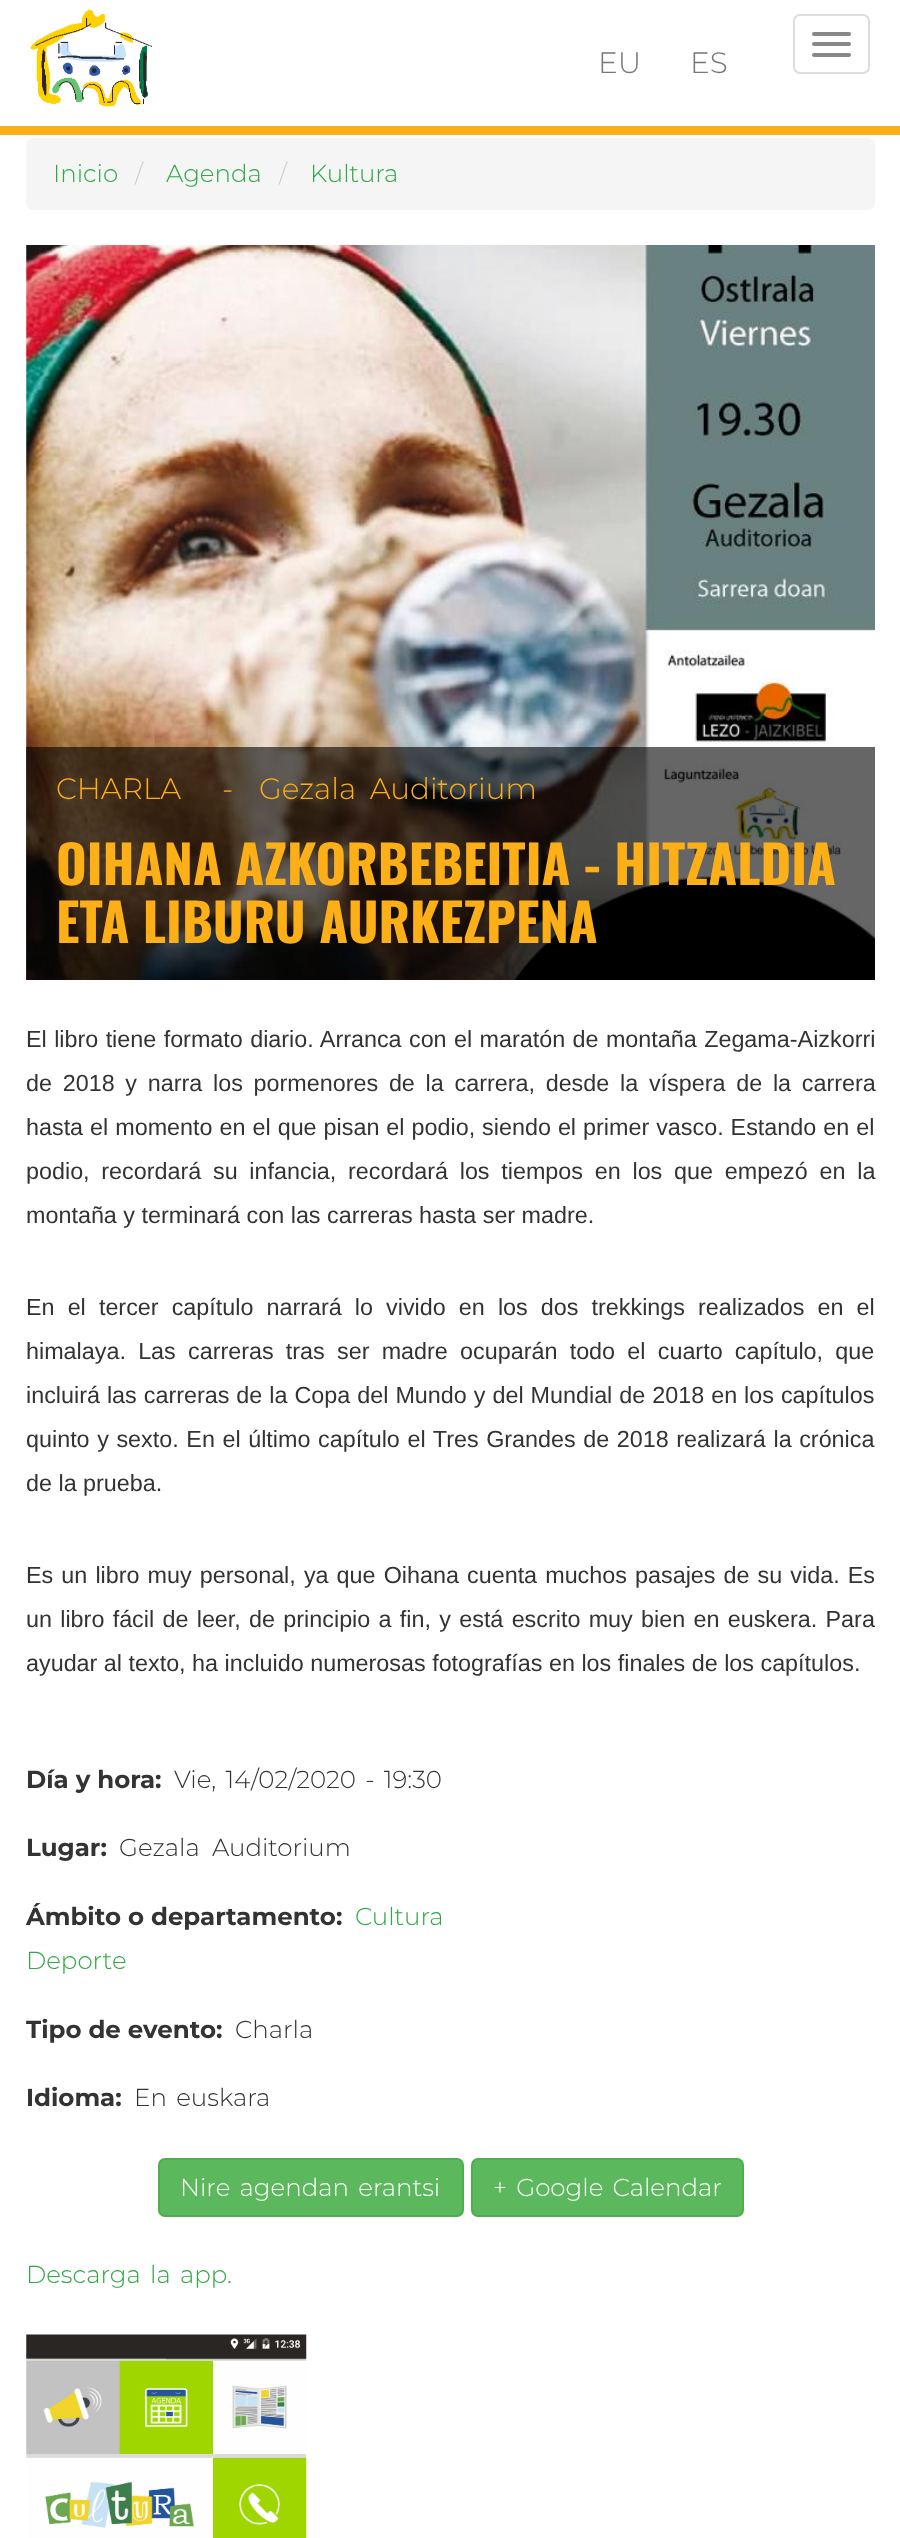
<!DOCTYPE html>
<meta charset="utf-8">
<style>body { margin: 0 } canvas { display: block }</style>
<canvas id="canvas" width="900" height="2538"></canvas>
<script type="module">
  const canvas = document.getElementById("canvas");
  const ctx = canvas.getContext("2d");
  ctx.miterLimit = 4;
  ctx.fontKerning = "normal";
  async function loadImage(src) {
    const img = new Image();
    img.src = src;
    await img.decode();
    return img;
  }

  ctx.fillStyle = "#ffffff";
  ctx.fillRect(0, 0, 900, 2538);
  ctx.fillStyle = "#fcaf17";
  ctx.fillRect(0, 126, 900, 9);
  ctx.drawImage(await loadImage("img1.png"), 30, 9, 122, 98);
  ctx.font = "300 29.5px Montserrat";
  ctx.fillStyle = "#777777";
  ctx.fillText("EU", 598, 73);
  ctx.fillText("ES", 690, 73);
  ctx.beginPath();
  ctx.roundRect(794, 15, 75, 58, 6);
  ctx.strokeStyle = "#dddddd";
  ctx.lineWidth = 2;
  ctx.stroke();
  ctx.fillStyle = "#888888";
  ctx.beginPath();
  ctx.roundRect(812, 32, 39, 4, 2);
  ctx.fill();
  ctx.beginPath();
  ctx.roundRect(812, 42, 39, 4, 2);
  ctx.fill();
  ctx.beginPath();
  ctx.roundRect(812, 53, 39, 4, 2);
  ctx.fill();
  ctx.fillStyle = "#f5f5f5";
  ctx.beginPath();
  ctx.roundRect(26, 138, 849, 72, 7);
  ctx.fill();
  ctx.font = "300 24.5px Montserrat";
  ctx.fillStyle = "#30a847";
  ctx.fillText("Inicio", 53, 182);
  ctx.fillStyle = "#cccccc";
  ctx.fillText("/", 135, 182);
  ctx.fillStyle = "#30a847";
  ctx.fillText("Agenda", 166, 182);
  ctx.fillStyle = "#cccccc";
  ctx.fillText("/", 279, 182);
  ctx.fillStyle = "#30a847";
  ctx.fillText("Kultura", 310, 182);
  ctx.drawImage(await loadImage("img2.png"), 26, 245, 849, 735);
  ctx.fillStyle = "rgba(0, 0, 0, 0.6)";
  ctx.fillRect(26, 747, 849, 233);
  ctx.font = "300 29.5px Montserrat";
  ctx.fillStyle = "#fcaf17";
  ctx.fillText("CHARLA", 56, 799);
  ctx.fillText("-", 222, 799);
  ctx.wordSpacing = "6px";
  ctx.fillText("Gezala Auditorium", 259, 799);
  ctx.wordSpacing = "0px";
  ctx.font = "bold 52.5px Oswald";
  ctx.fillText("OIHANA AZKORBEBEITIA - HITZALDIA", 56, 885);
  ctx.fillText("ETA LIBURU AURKEZPENA", 56, 943);
  ctx.wordSpacing = "0.9px";
  ctx.font = "23.35px Liberation Sans";
  ctx.fillStyle = "#333333";
  ctx.fillText("El libro tiene formato diario. Arranca con el maratón de montaña Zegama-Aizkorri", 26, 1047);
  ctx.wordSpacing = "4.25px";
  ctx.fillText("de 2018 y narra los pormenores de la carrera, desde la víspera de la carrera", 26, 1091);
  ctx.wordSpacing = "0.5px";
  ctx.fillText("hasta el momento en el que pisan el podio, siendo el primer vasco. Estando en el", 26, 1135);
  ctx.wordSpacing = "5.25px";
  ctx.fillText("podio, recordará su infancia, recordará los tiempos en los que empezó en la", 26, 1179);
  ctx.wordSpacing = "0px";
  ctx.fillText("montaña y terminará con las carreras hasta ser madre.", 26, 1223);
  ctx.wordSpacing = "6.6px";
  ctx.fillText("En el tercer capítulo narrará lo vivido en los dos trekkings realizados en el", 26, 1315);
  ctx.wordSpacing = "5.75px";
  ctx.fillText("himalaya. Las carreras tras ser madre ocuparán todo el cuarto capítulo, que", 26, 1359);
  ctx.wordSpacing = "0.5px";
  ctx.fillText("incluirá las carreras de la Copa del Mundo y del Mundial de 2018 en los capítulos", 26, 1403);
  ctx.wordSpacing = "1.1px";
  ctx.fillText("quinto y sexto. En el último capítulo el Tres Grandes de 2018 realizará la crónica", 26, 1447);
  ctx.wordSpacing = "0px";
  ctx.fillText("de la prueba.", 26, 1491);
  ctx.wordSpacing = "1.6px";
  ctx.fillText("Es un libro muy personal, ya que Oihana cuenta muchos pasajes de su vida. Es", 26, 1583);
  ctx.wordSpacing = "1.8px";
  ctx.fillText("un libro fácil de leer, de principio a fin, y está escrito muy bien en euskera. Para", 26, 1627);
  ctx.wordSpacing = "0px";
  ctx.fillText("ayudar al texto, ha incluido numerosas fotografías en los finales de los capítulos.", 26, 1671);
  ctx.font = "bold 24.5px Montserrat";
  ctx.fillText("Día y hora:", 26, 1788);
  ctx.wordSpacing = "3px";
  ctx.font = "300 24.5px Montserrat";
  ctx.fillText("Vie, 14/02/2020 - 19:30", 174, 1788);
  ctx.wordSpacing = "0px";
  ctx.font = "bold 24.5px Montserrat";
  ctx.fillText("Lugar:", 26, 1856);
  ctx.wordSpacing = "6px";
  ctx.font = "300 24.5px Montserrat";
  ctx.fillText("Gezala Auditorium", 119, 1856);
  ctx.wordSpacing = "0px";
  ctx.font = "bold 24.5px Montserrat";
  ctx.fillText("Ámbito o departamento:", 26, 1925);
  ctx.font = "300 24.5px Montserrat";
  ctx.fillStyle = "#30a847";
  ctx.fillText("Cultura", 355, 1925);
  ctx.fillText("Deporte", 26, 1969);
  ctx.font = "bold 24.5px Montserrat";
  ctx.fillStyle = "#333333";
  ctx.fillText("Tipo de evento:", 26, 2038);
  ctx.font = "300 24.5px Montserrat";
  ctx.fillText("Charla", 235, 2038);
  ctx.font = "bold 24.5px Montserrat";
  ctx.fillText("Idioma:", 26, 2106);
  ctx.wordSpacing = "3px";
  ctx.font = "300 24.5px Montserrat";
  ctx.fillText("En euskara", 134, 2106);
  ctx.fillStyle = "#5cb85c";
  ctx.beginPath();
  ctx.roundRect(159, 2159, 304, 57, 6);
  ctx.fill();
  ctx.strokeStyle = "#4cae4c";
  ctx.stroke();
  ctx.fillStyle = "#ffffff";
  ctx.fillText("Nire agendan erantsi", 180, 2196);
  ctx.fillStyle = "#5cb85c";
  ctx.beginPath();
  ctx.roundRect(472, 2159, 271, 57, 6);
  ctx.fill();
  ctx.stroke();
  ctx.fillStyle = "#ffffff";
  ctx.fillText("+ Google Calendar", 493, 2196);
  ctx.fillStyle = "#30a847";
  ctx.fillText("Descarga la app.", 26, 2283);
  ctx.drawImage(await loadImage("img3.png"), 26, 2334, 281, 204);
</script>
